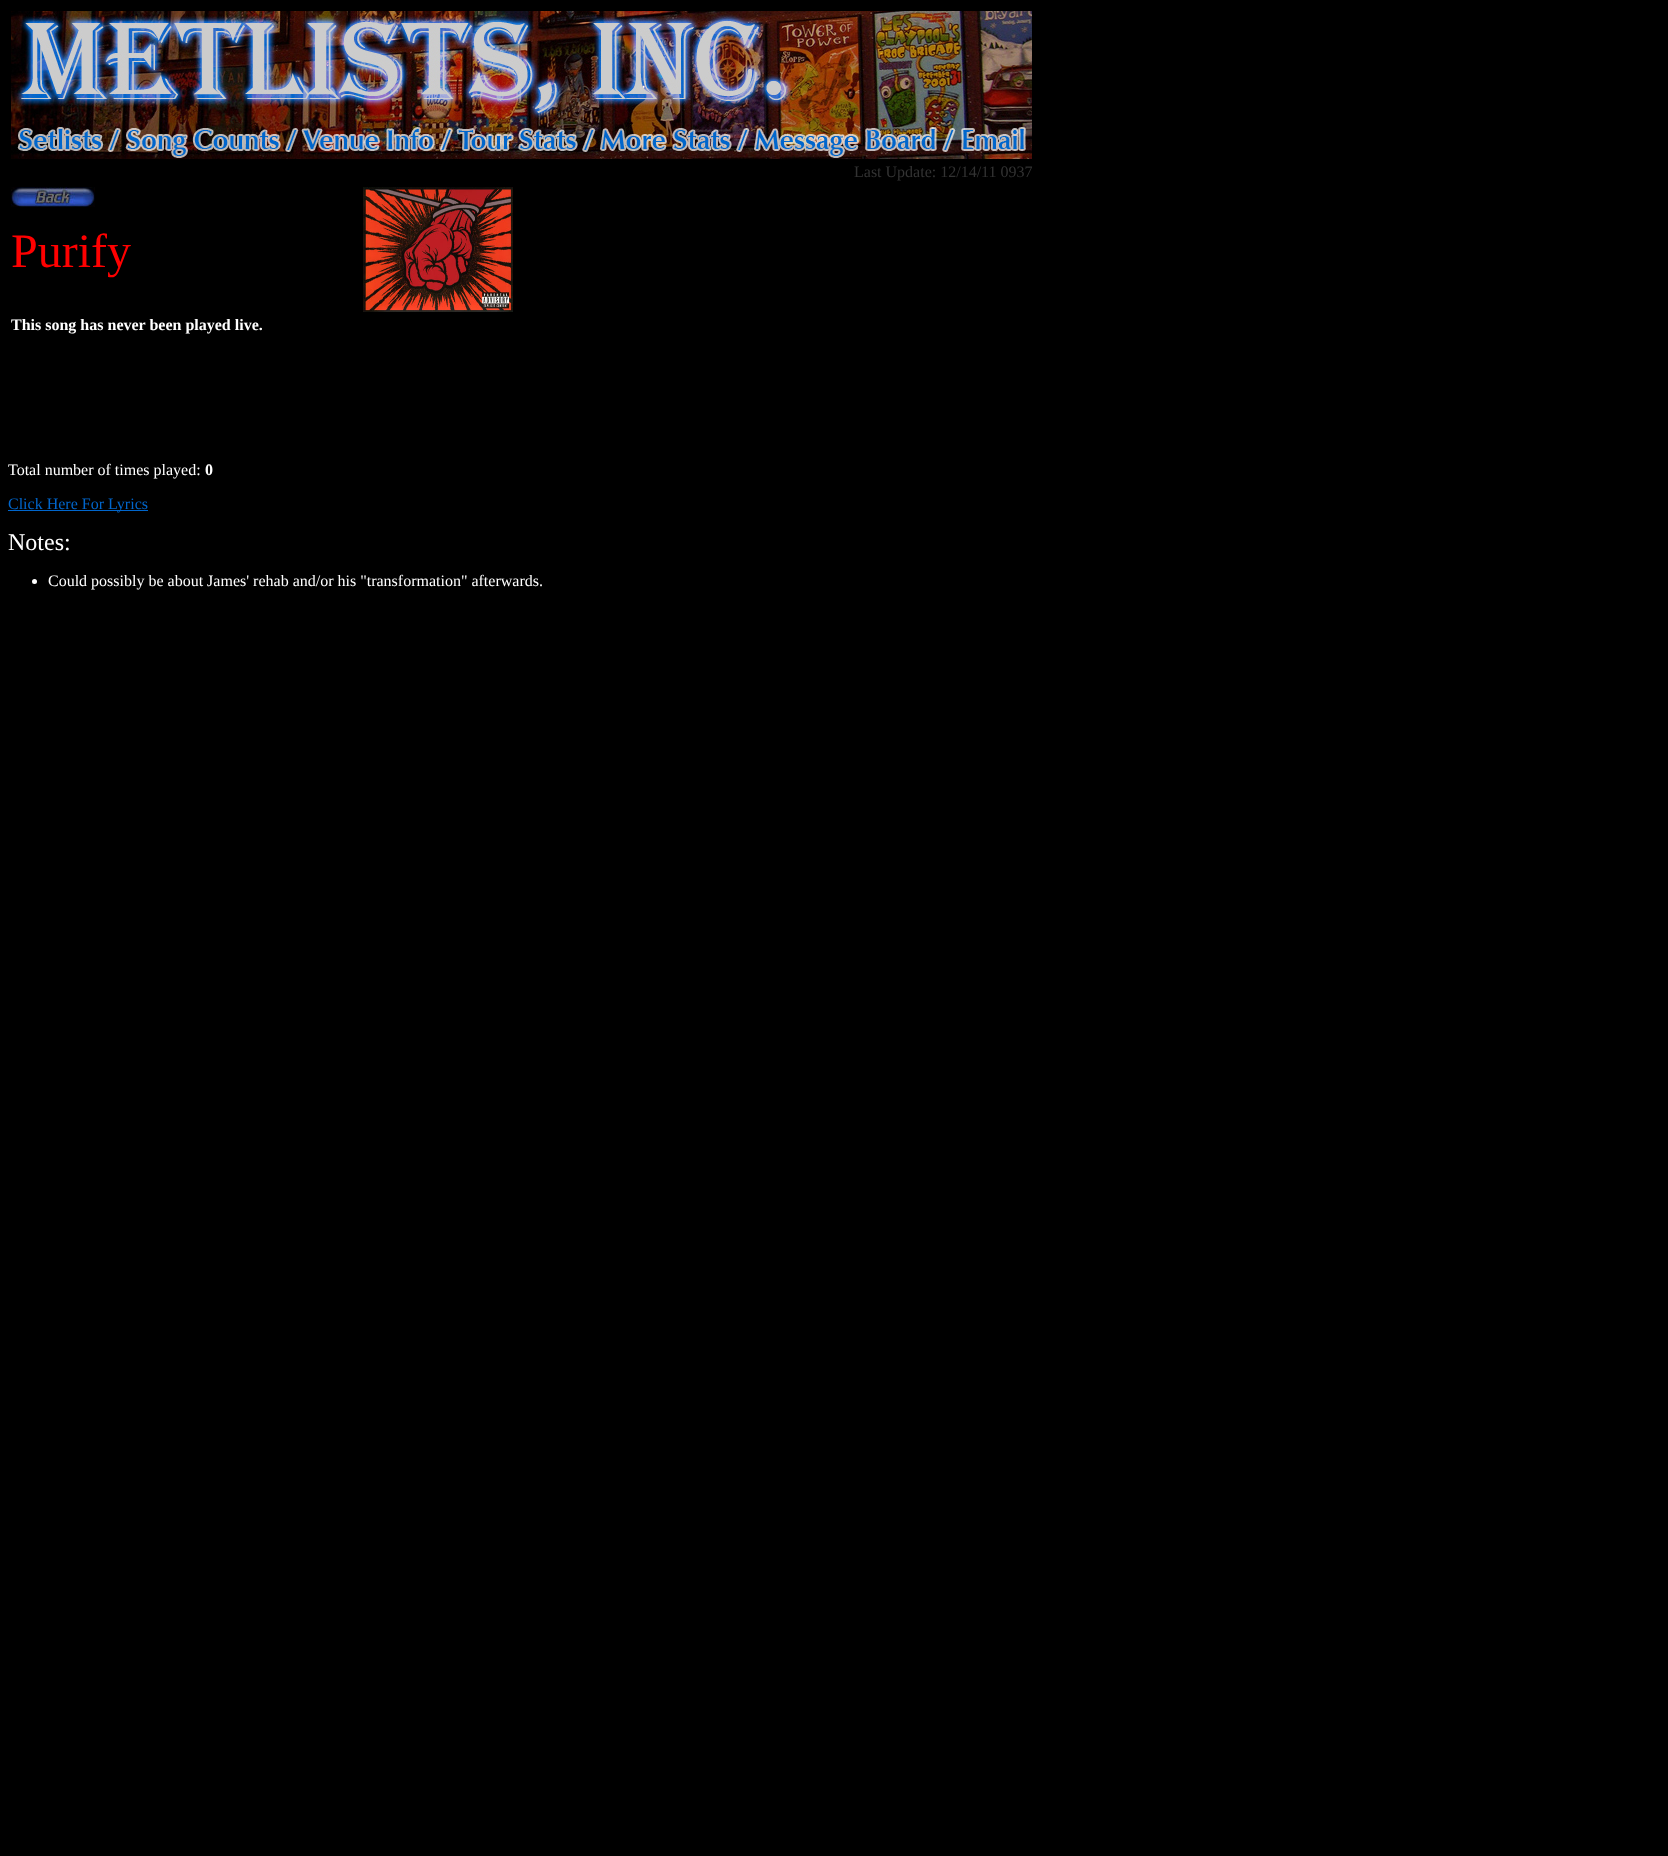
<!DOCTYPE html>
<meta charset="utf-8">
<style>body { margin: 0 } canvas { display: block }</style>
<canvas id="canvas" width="1668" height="1856"></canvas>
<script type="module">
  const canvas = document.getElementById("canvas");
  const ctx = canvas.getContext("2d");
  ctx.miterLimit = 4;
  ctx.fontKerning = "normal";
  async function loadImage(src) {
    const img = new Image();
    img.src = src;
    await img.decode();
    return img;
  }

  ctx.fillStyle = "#000000";
  ctx.fillRect(0, 0, 1668, 1856);
  ctx.drawImage(await loadImage("img1.png"), 11, 11, 1021, 148);
  ctx.font = "16px Liberation Serif";
  ctx.fillStyle = "#333333";
  ctx.fillText("Last Update: 12/14/11 0937", 854, 177);
  ctx.drawImage(await loadImage("img2.png"), 11, 187, 84, 20);
  ctx.font = "48px Liberation Serif";
  ctx.fillStyle = "#ff0000";
  ctx.fillText("Purify", 11, 267);
  ctx.drawImage(await loadImage("img3.png"), 363, 187, 150, 125);
  ctx.font = "bold 16px Liberation Serif";
  ctx.fillStyle = "#ffffff";
  ctx.fillText("This song has never been played live.", 11, 330);
  ctx.font = "16px Liberation Serif";
  ctx.fillText("Total number of times played:", 8, 475);
  ctx.font = "bold 16px Liberation Serif";
  ctx.fillText("0", 205, 475);
  ctx.fillStyle = "#0066cc";
  ctx.fillRect(8, 510, 140, 1);
  ctx.font = "16px Liberation Serif";
  ctx.fillText("Click Here For Lyrics", 8, 509);
  ctx.font = "24px Liberation Serif";
  ctx.fillStyle = "#ffffff";
  ctx.fillText("Notes:", 8, 550);
  ctx.beginPath();
  ctx.arc(34.5, 581.5, 2.5, 0, Math.PI * 2);
  ctx.fill();
  ctx.font = "16px Liberation Serif";
  ctx.fillText("Could possibly be about James' rehab and/or his \"transformation\" afterwards.", 48, 586);
</script>
